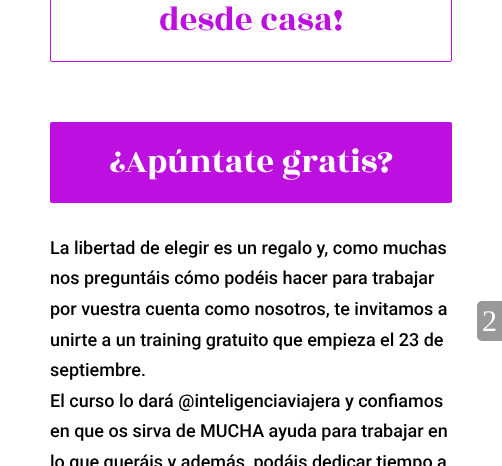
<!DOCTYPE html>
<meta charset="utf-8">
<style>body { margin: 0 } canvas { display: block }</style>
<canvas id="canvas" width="502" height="466"></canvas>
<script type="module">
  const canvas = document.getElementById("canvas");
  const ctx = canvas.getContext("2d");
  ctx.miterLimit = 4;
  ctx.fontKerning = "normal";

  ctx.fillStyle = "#ffffff";
  ctx.fillRect(0, 0, 502, 466);
  ctx.beginPath();
  ctx.roundRect(50.5, -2.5, 401, 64, 1.5);
  ctx.strokeStyle = "#bd10e0";
  ctx.stroke();
  ctx.font = "35px Rozha One";
  ctx.fillStyle = "#bd10e0";
  ctx.fillText("desde casa!", 159, 30);
  ctx.beginPath();
  ctx.roundRect(50, 122, 402, 81, 2);
  ctx.fill();
  ctx.fillStyle = "#ffffff";
  ctx.fillText("¿Apúntate gratis?", 109, 172);
  ctx.font = "500 18px Roboto";
  ctx.fillStyle = "#000000";
  ctx.fillText("La libertad de elegir es un regalo y, como muchas", 50, 254);
  ctx.fillText("nos preguntáis cómo podéis hacer para trabajar", 50, 284);
  ctx.fillText("por vuestra cuenta como nosotros, te invitamos a", 50, 315);
  ctx.fillText("unirte a un training gratuito que empieza el 23 de", 50, 346);
  ctx.fillText("septiembre.", 50, 376);
  ctx.fillText("El curso lo dará @inteligenciaviajera y confiamos", 50, 407);
  ctx.fillText("en que os sirva de MUCHA ayuda para trabajar en", 50, 437);
  ctx.fillText("lo que queráis y además, podáis dedicar tiempo a", 50, 468);
  ctx.fillStyle = "#999999";
  ctx.beginPath();
  ctx.roundRect(477, 301, 25, 40, [5, 0, 0, 5]);
  ctx.fill();
  ctx.font = "30px Liberation Serif";
  ctx.fillStyle = "#ffffff";
  ctx.fillText("2", 482, 331);
</script>
